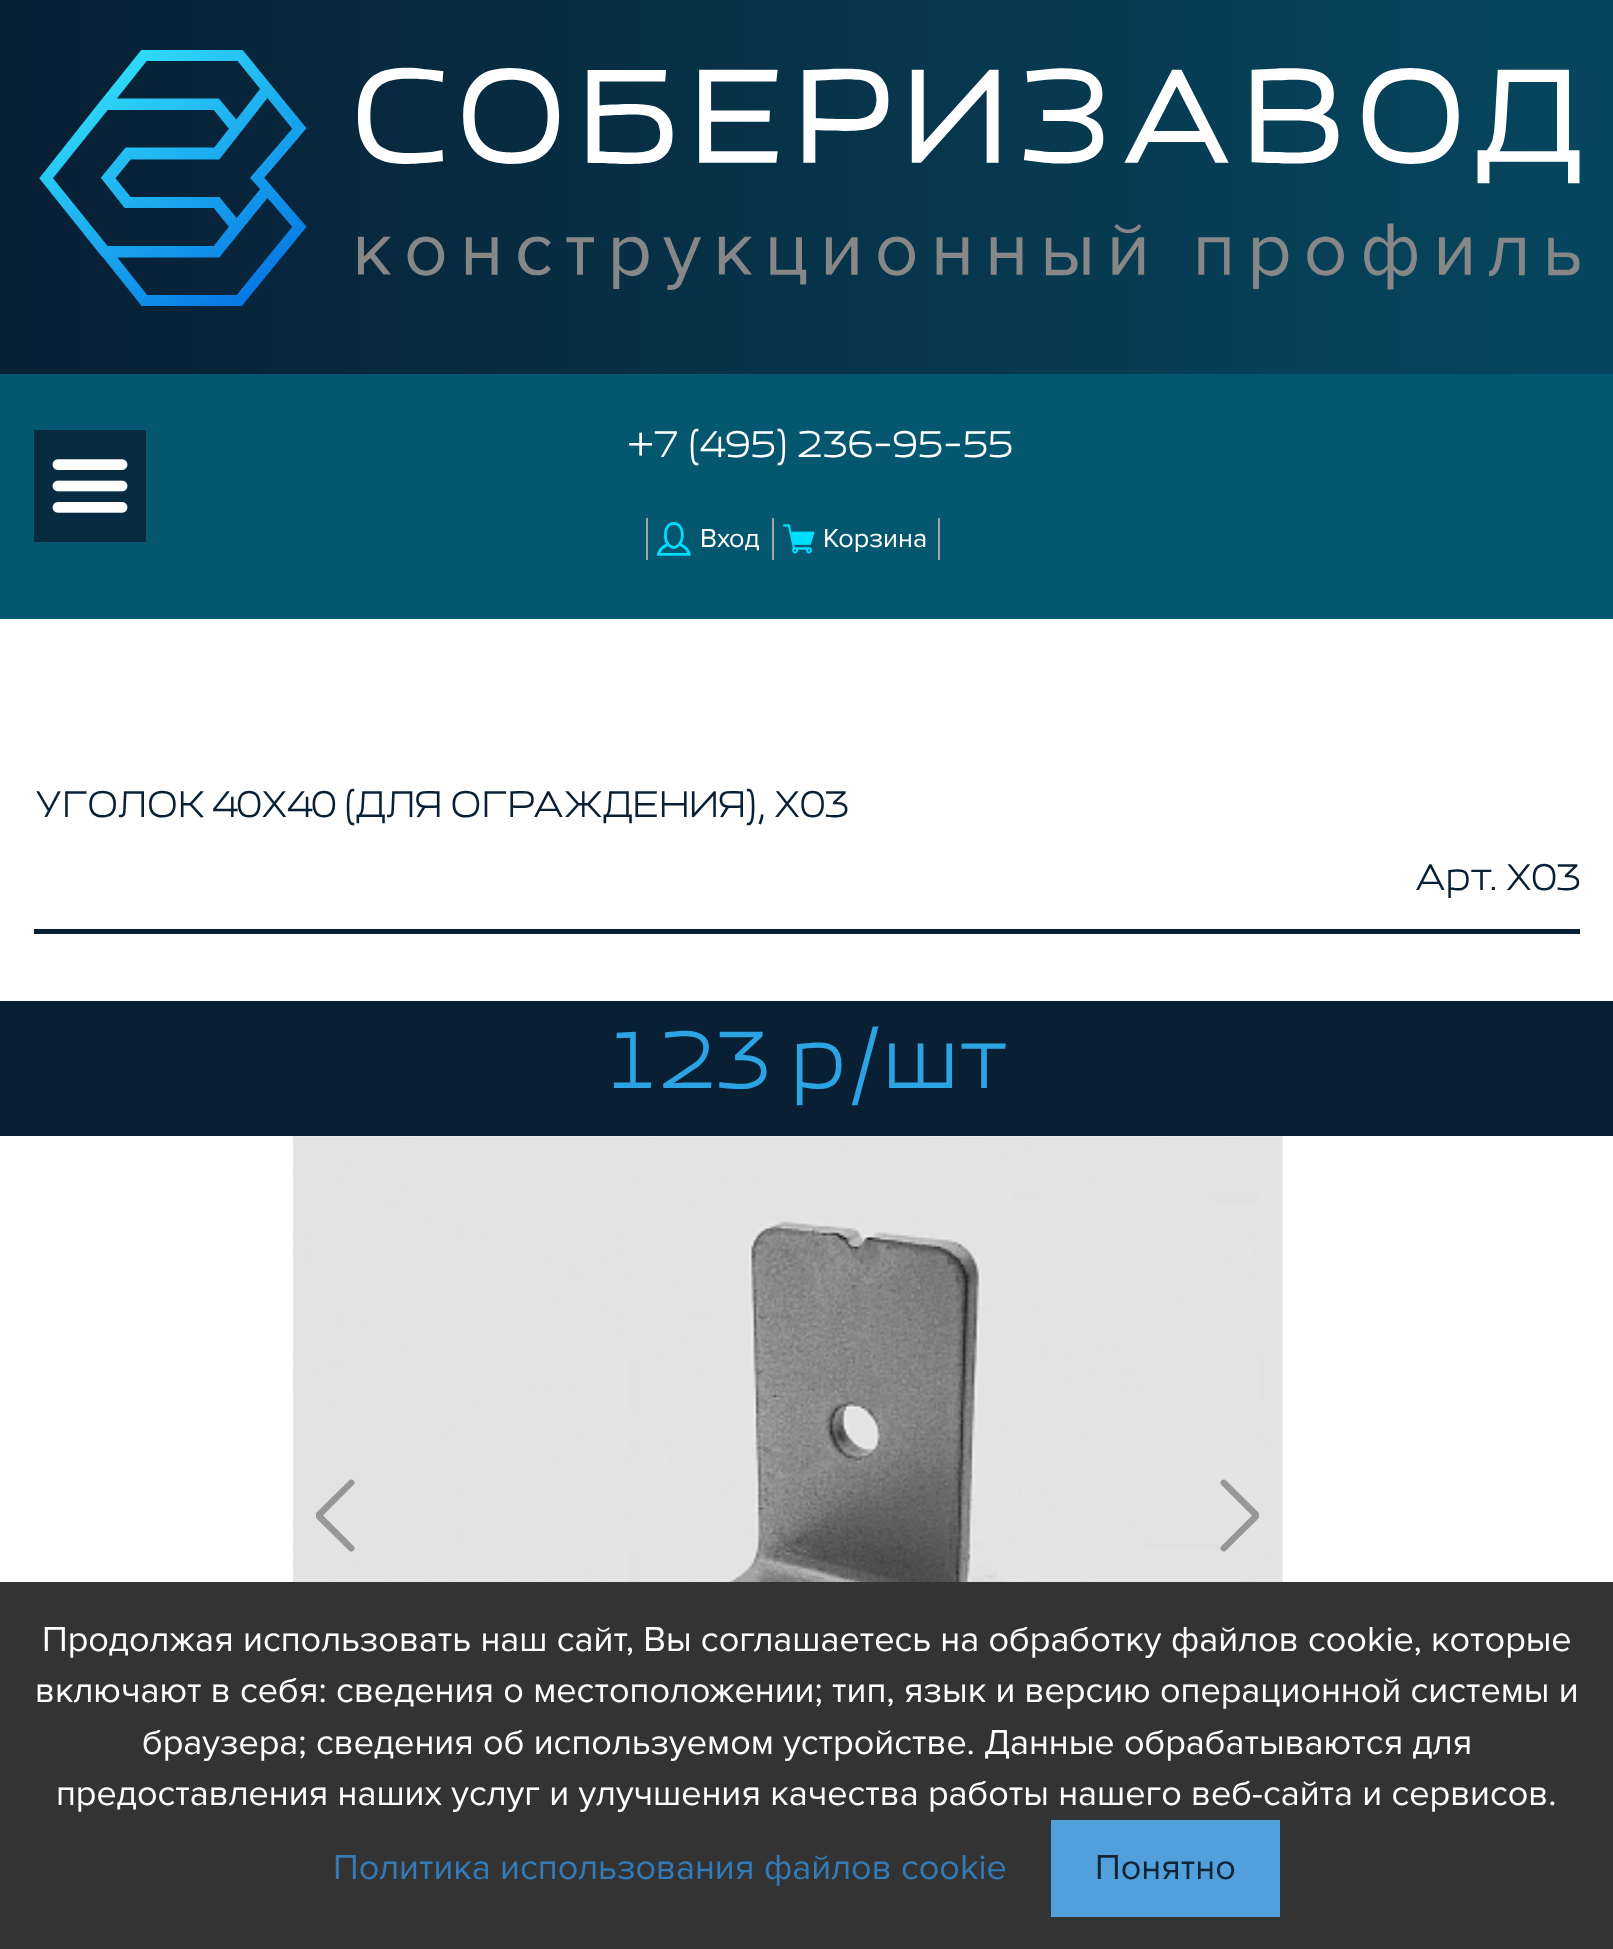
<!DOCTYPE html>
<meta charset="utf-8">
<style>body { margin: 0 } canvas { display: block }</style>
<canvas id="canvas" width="1613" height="1949"></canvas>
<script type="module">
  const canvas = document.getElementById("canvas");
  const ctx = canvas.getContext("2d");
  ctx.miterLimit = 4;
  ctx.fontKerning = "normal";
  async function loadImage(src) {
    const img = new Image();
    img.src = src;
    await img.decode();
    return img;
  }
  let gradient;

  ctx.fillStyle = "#ffffff";
  ctx.fillRect(0, 0, 1613, 1949);
  gradient = ctx.createLinearGradient(0, 302, 1613, 301);
  gradient.addColorStop(0, "#081f34");
  gradient.addColorStop(1, "#06475f");
  ctx.fillStyle = gradient;
  ctx.fillRect(0, 0, 1613, 374);
  ctx.drawImage(await loadImage("img1.png"), 39, 50, 1541, 256);
  ctx.fillStyle = "#05566f";
  ctx.fillRect(0, 374, 1613, 245);
  ctx.fillStyle = "#072c42";
  ctx.fillRect(34, 430, 112, 112);
  ctx.drawImage(await loadImage("img2.png"), 52, 459, 76, 54);
  ctx.font = "36px 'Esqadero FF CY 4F'";
  ctx.fillStyle = "#ffffff";
  ctx.fillText("+7 (495) 236-95-55", 628, 457);
  ctx.drawImage(await loadImage("img3.png"), 657, 522, 34, 34);
  ctx.font = "27px Proxima Nova";
  ctx.fillText("Вход", 700, 547);
  ctx.fillStyle = "#a5a5a5";
  ctx.fillRect(772, 518, 2, 42);
  ctx.fillRect(646, 518, 2, 42);
  ctx.drawImage(await loadImage("img4.png"), 783, 524, 32, 30);
  ctx.fillStyle = "#ffffff";
  ctx.fillText("Корзина", 823, 547);
  ctx.fillStyle = "#a5a5a5";
  ctx.fillRect(938, 518, 2, 42);
  ctx.fillStyle = "#081f34";
  ctx.fillRect(34, 929, 1546, 5);
  ctx.letterSpacing = "-1.1px";
  ctx.font = "36px 'Esqadero FF CY 4F'";
  ctx.fillText("УГОЛОК 40Х40 (ДЛЯ ОГРАЖДЕНИЯ), X03", 34, 817);
  ctx.fillText("Арт. X03", 1414, 890);
  ctx.fillRect(0, 1001, 1613, 135);
  ctx.letterSpacing = "0px";
  ctx.font = "78.75px 'Esqadero FF CY 4F'";
  ctx.fillStyle = "#2ca3e2";
  ctx.fillText("123 р/шт", 605, 1088);
  ctx.drawImage(await loadImage("img5.png"), 293, 1136, 990, 446);
  ctx.fillStyle = "#979797";
  ctx.beginPath();
  ctx.moveTo(353.5, 1480.5);
  ctx.bezierCurveTo(355, 1481.5, 355, 1484, 353.5, 1485);
  ctx.lineTo(321.5, 1517);
  ctx.bezierCurveTo(320.5, 1518.5, 318.5, 1518.5, 317, 1517);
  ctx.bezierCurveTo(315.5, 1515.5, 315.5, 1513.5, 317, 1512);
  ctx.lineTo(349, 1480.5);
  ctx.bezierCurveTo(350, 1479, 352, 1479, 353.5, 1480.5);
  ctx.closePath();
  ctx.fill();
  ctx.beginPath();
  ctx.moveTo(317, 1514);
  ctx.bezierCurveTo(318.5, 1513, 320.5, 1513, 321.5, 1514);
  ctx.lineTo(353.5, 1546);
  ctx.bezierCurveTo(355, 1547, 355, 1549.5, 353.5, 1550.5);
  ctx.bezierCurveTo(352, 1552, 350, 1552, 349, 1550.5);
  ctx.lineTo(317, 1519);
  ctx.bezierCurveTo(315.5, 1517.5, 315.5, 1515.5, 317, 1514);
  ctx.closePath();
  ctx.fill();
  ctx.beginPath();
  ctx.moveTo(1221.5, 1480.5);
  ctx.bezierCurveTo(1223, 1479, 1225, 1479, 1226, 1480.5);
  ctx.lineTo(1258, 1512);
  ctx.bezierCurveTo(1259.5, 1513.5, 1259.5, 1515.5, 1258, 1517);
  ctx.bezierCurveTo(1256.5, 1518.5, 1254.5, 1518.5, 1253.5, 1517);
  ctx.lineTo(1221.5, 1485);
  ctx.bezierCurveTo(1220, 1484, 1220, 1481.5, 1221.5, 1480.5);
  ctx.closePath();
  ctx.fill();
  ctx.beginPath();
  ctx.moveTo(1258, 1514);
  ctx.bezierCurveTo(1259.5, 1515.5, 1259.5, 1517.5, 1258, 1519);
  ctx.lineTo(1226, 1550.5);
  ctx.bezierCurveTo(1225, 1552, 1223, 1552, 1221.5, 1550.5);
  ctx.bezierCurveTo(1220, 1549.5, 1220, 1547, 1221.5, 1546);
  ctx.lineTo(1253.5, 1514);
  ctx.bezierCurveTo(1254.5, 1513, 1256.5, 1513, 1258, 1514);
  ctx.closePath();
  ctx.fill();
  ctx.fillStyle = "#333333";
  ctx.fillRect(0, 1582, 1613, 367);
  ctx.font = "36px Proxima Nova";
  ctx.fillStyle = "#ffffff";
  ctx.fillText("Продолжая использовать наш сайт, Вы соглашаетесь на обработку файлов cookie, которые", 42, 1651);
  ctx.fillText("включают в себя: сведения о местоположении; тип, язык и версию операционной системы и", 35, 1702);
  ctx.fillText("браузера; сведения об используемом устройстве. Данные обрабатываются для", 142, 1754);
  ctx.fillText("предоставления наших услуг и улучшения качества работы нашего веб-сайта и сервисов.", 56, 1805);
  ctx.fillStyle = "#337ab7";
  ctx.fillText("Политика использования файлов cookie", 333, 1879);
  ctx.fillStyle = "#52a0db";
  ctx.fillRect(1051, 1820, 229, 97);
  ctx.fillStyle = "#0f2436";
  ctx.fillText("Понятно", 1095, 1879);
</script>
